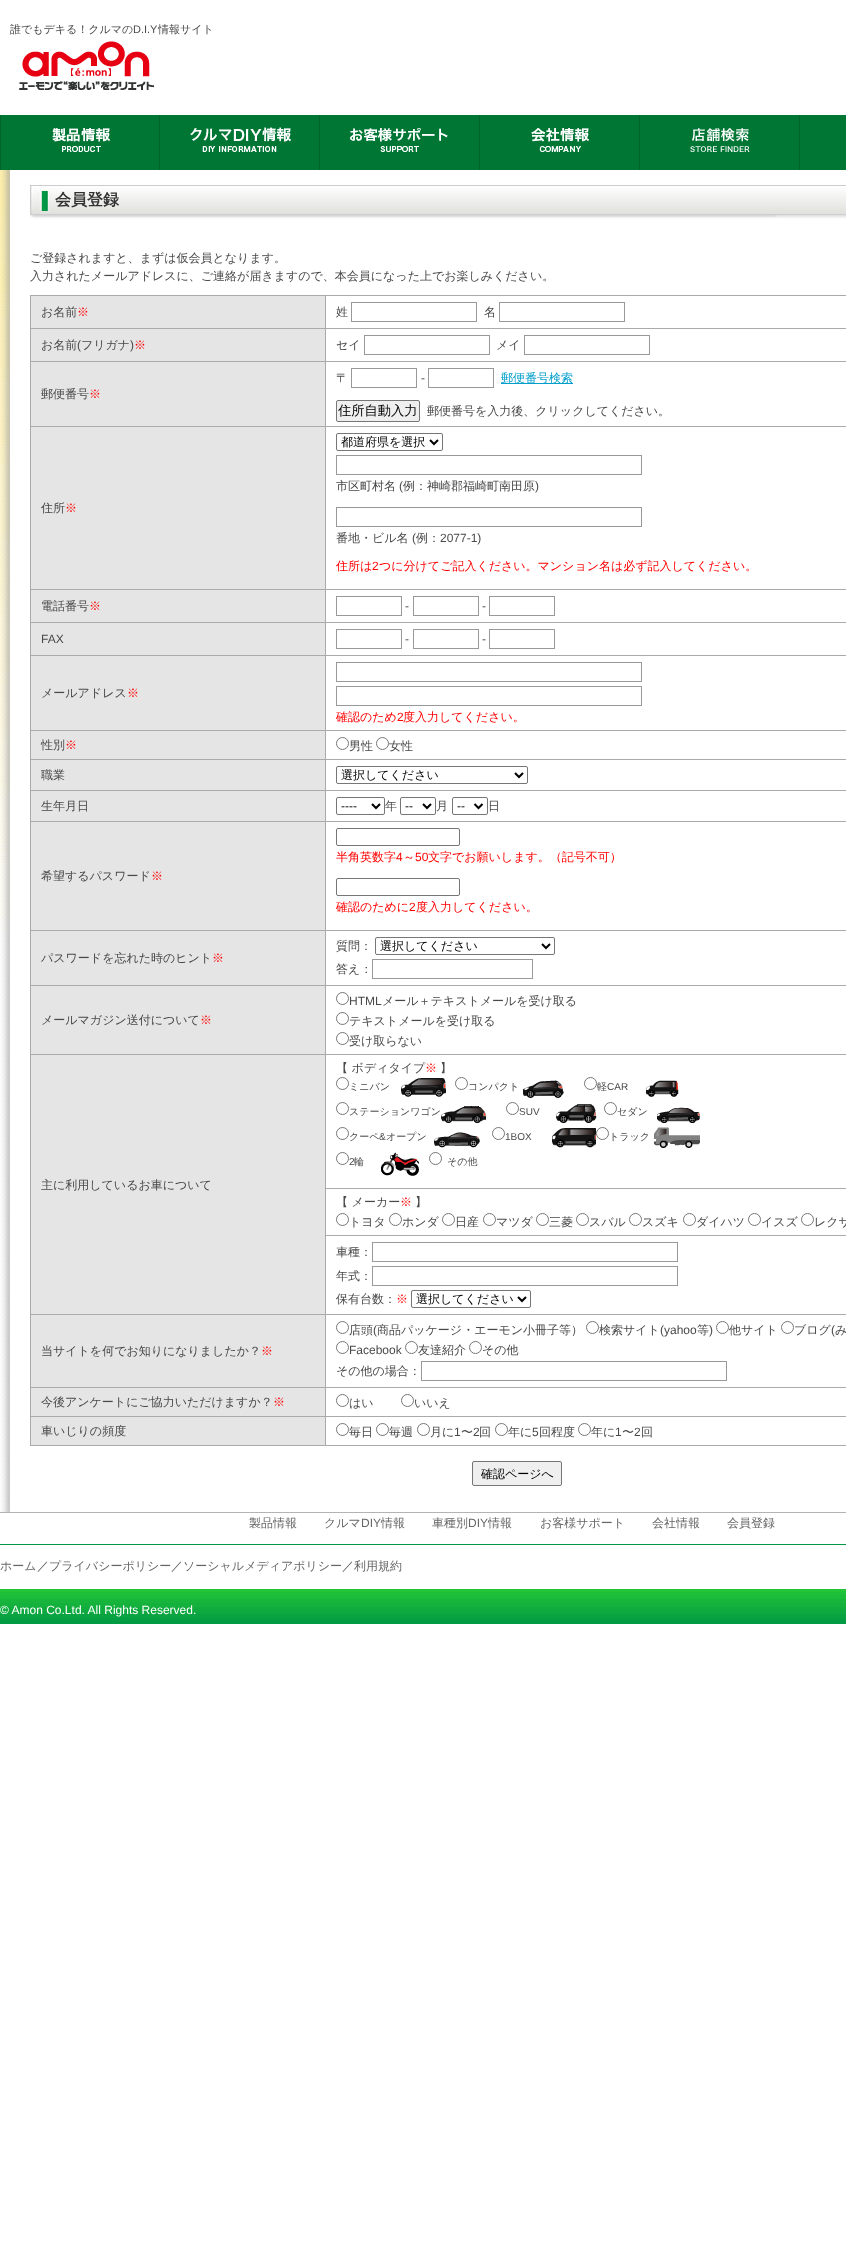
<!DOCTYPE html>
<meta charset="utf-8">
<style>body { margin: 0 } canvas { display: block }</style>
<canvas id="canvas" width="846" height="2252"></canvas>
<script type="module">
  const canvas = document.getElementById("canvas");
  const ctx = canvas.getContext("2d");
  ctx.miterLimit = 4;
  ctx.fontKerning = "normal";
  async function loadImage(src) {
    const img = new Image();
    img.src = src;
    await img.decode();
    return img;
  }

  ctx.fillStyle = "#ffffff";
  ctx.fillRect(0, 0, 846, 2252);
  ctx.fillStyle = "#007635";
  ctx.fillRect(1, 115, 845, 55);
  ctx.fillStyle = "#00652d";
  ctx.fillRect(159, 110, 1, 60);
  ctx.fillRect(0, 110, 1, 60);
  ctx.fillRect(319, 110, 1, 60);
  ctx.fillRect(479, 110, 1, 60);
  ctx.fillRect(639, 110, 1, 60);
  ctx.fillRect(799, 110, 1, 60);
  ctx.fillStyle = "#ffffff";
  ctx.fillRect(0, 110, 800, 5);
  ctx.font = "500 11px WenQuanYi Zen Hei";
  ctx.fillStyle = "#494949";
  ctx.fillText("誰でもデキる！クルマの", 10, 33);
  ctx.font = "11px Liberation Sans";
  ctx.fillText("D.I.Y", 133, 33);
  ctx.font = "500 11px WenQuanYi Zen Hei";
  ctx.fillText("情報サイト", 158, 33);
  ctx.drawImage(await loadImage("img1.png"), 19, 41, 135, 49);
  ctx.drawImage(await loadImage("img2.png"), 52, 128, 58, 24);
  ctx.drawImage(await loadImage("img3.png"), 190, 127, 101, 25);
  ctx.drawImage(await loadImage("img4.png"), 350, 128, 98, 24);
  ctx.drawImage(await loadImage("img5.png"), 531, 128, 58, 24);
  ctx.drawImage(await loadImage("img6.png"), 690, 128, 60, 24);
  ctx.drawImage(await loadImage("img7.png"), 0, 170, 10, 762);
  ctx.fillStyle = "#b3b3b3";
  ctx.fillRect(0, 1512, 846, 1);
  ctx.drawImage(await loadImage("img8.png"), 0, 170, 846, 1342);
  ctx.drawImage(await loadImage("img9.png"), 30, 185, 816, 34);
  ctx.font = "bold 16px WenQuanYi Zen Hei";
  ctx.fillStyle = "#333333";
  ctx.fillText("会員登録", 55, 205);
  ctx.font = "500 12px WenQuanYi Zen Hei";
  ctx.fillStyle = "#494949";
  ctx.fillText("ご登録されますと、まずは仮会員となります。", 30, 262);
  ctx.fillText("入力されたメールアドレスに、ご連絡が届きますので、本会員になった上でお楽しみください。", 30, 280);
  ctx.fillStyle = "#aaaaaa";
  ctx.fillRect(30, 295, 816, 1);
  ctx.fillRect(30, 295, 1, 1151);
  ctx.fillStyle = "#e5e5e5";
  ctx.fillRect(31, 296, 294, 32);
  ctx.fillStyle = "#aaaaaa";
  ctx.fillRect(325, 1188, 521, 1);
  ctx.fillRect(325, 1235, 521, 1);
  ctx.fillRect(325, 1445, 521, 1);
  ctx.fillRect(325, 1416, 1, 30);
  ctx.fillRect(325, 1416, 521, 1);
  ctx.fillRect(325, 1387, 1, 30);
  ctx.fillRect(325, 1387, 521, 1);
  ctx.fillRect(325, 1314, 1, 74);
  ctx.fillRect(325, 1314, 521, 1);
  ctx.fillRect(325, 1054, 1, 261);
  ctx.fillRect(325, 1054, 521, 1);
  ctx.fillRect(325, 985, 1, 70);
  ctx.fillRect(325, 985, 521, 1);
  ctx.fillRect(325, 930, 1, 56);
  ctx.fillRect(325, 930, 521, 1);
  ctx.fillRect(325, 821, 1, 110);
  ctx.fillRect(325, 821, 521, 1);
  ctx.fillRect(325, 790, 1, 32);
  ctx.fillRect(325, 790, 521, 1);
  ctx.fillRect(325, 759, 1, 32);
  ctx.fillRect(325, 759, 521, 1);
  ctx.fillRect(325, 730, 1, 30);
  ctx.fillRect(325, 730, 521, 1);
  ctx.fillRect(325, 655, 1, 76);
  ctx.fillRect(325, 655, 521, 1);
  ctx.fillRect(325, 622, 1, 34);
  ctx.fillRect(325, 622, 521, 1);
  ctx.fillRect(325, 589, 1, 34);
  ctx.fillRect(325, 589, 521, 1);
  ctx.fillRect(325, 426, 1, 164);
  ctx.fillRect(325, 426, 521, 1);
  ctx.fillRect(325, 361, 1, 66);
  ctx.fillRect(325, 361, 521, 1);
  ctx.fillRect(325, 328, 1, 34);
  ctx.fillRect(325, 328, 521, 1);
  ctx.fillRect(325, 295, 1, 34);
  ctx.fillRect(30, 328, 296, 1);
  ctx.fillStyle = "#494949";
  ctx.fillText("お名前", 41, 316);
  ctx.fillStyle = "#ff0000";
  ctx.fillText("※", 77, 316);
  ctx.fillStyle = "#494949";
  ctx.fillText("姓", 336, 316);
  ctx.strokeStyle = "#999999";
  ctx.strokeRect(351.5, 302.5, 125, 19);
  ctx.fillText("名", 484, 316);
  ctx.strokeRect(499.5, 302.5, 125, 19);
  ctx.fillStyle = "#e5e5e5";
  ctx.fillRect(31, 329, 294, 32);
  ctx.fillStyle = "#aaaaaa";
  ctx.fillRect(30, 361, 296, 1);
  ctx.fillStyle = "#494949";
  ctx.fillText("お名前", 41, 349);
  ctx.font = "12px Liberation Sans";
  ctx.fillText("(", 77, 349);
  ctx.font = "500 12px WenQuanYi Zen Hei";
  ctx.fillText("フリガナ", 81, 349);
  ctx.font = "12px Liberation Sans";
  ctx.fillText(")", 130, 349);
  ctx.font = "500 12px WenQuanYi Zen Hei";
  ctx.fillStyle = "#ff0000";
  ctx.fillText("※", 134, 349);
  ctx.fillStyle = "#494949";
  ctx.fillText("セイ", 336, 349);
  ctx.strokeRect(364.5, 335.5, 125, 19);
  ctx.fillText("メイ", 496, 349);
  ctx.strokeRect(524.5, 335.5, 125, 19);
  ctx.fillStyle = "#e5e5e5";
  ctx.fillRect(31, 362, 294, 64);
  ctx.fillStyle = "#aaaaaa";
  ctx.fillRect(30, 426, 296, 1);
  ctx.fillStyle = "#494949";
  ctx.fillText("郵便番号", 41, 398);
  ctx.fillStyle = "#ff0000";
  ctx.fillText("※", 89, 398);
  ctx.fillStyle = "#494949";
  ctx.fillText("〒", 336, 382);
  ctx.strokeRect(351.5, 368.5, 65, 19);
  ctx.font = "12px Liberation Sans";
  ctx.fillText("-", 421, 382);
  ctx.strokeRect(428.5, 368.5, 65, 19);
  ctx.fillStyle = "#009ecb";
  ctx.fillRect(501, 383, 72, 1);
  ctx.font = "500 12px WenQuanYi Zen Hei";
  ctx.fillText("郵便番号検索", 501, 382);
  ctx.fillStyle = "#efefef";
  ctx.beginPath();
  ctx.roundRect(336.5, 400.5, 83, 21, 1.5);
  ctx.fill();
  ctx.strokeStyle = "#767676";
  ctx.stroke();
  ctx.font = "500 13.25px WenQuanYi Zen Hei";
  ctx.fillStyle = "#000000";
  ctx.fillText("住所自動入力", 338, 415);
  ctx.font = "500 12px WenQuanYi Zen Hei";
  ctx.fillStyle = "#494949";
  ctx.fillText("郵便番号を入力後、クリックしてください。", 427, 415);
  ctx.fillStyle = "#e5e5e5";
  ctx.fillRect(31, 427, 294, 162);
  ctx.fillStyle = "#aaaaaa";
  ctx.fillRect(30, 589, 296, 1);
  ctx.fillStyle = "#494949";
  ctx.fillText("住所", 41, 512);
  ctx.fillStyle = "#ff0000";
  ctx.fillText("※", 65, 512);
  ctx.beginPath();
  ctx.roundRect(336.5, 433.5, 106, 17, 1.5);
  ctx.stroke();
  ctx.beginPath();
  ctx.moveTo(430, 440);
  ctx.lineTo(434, 444);
  ctx.lineTo(438, 440);
  ctx.strokeStyle = "#000000";
  ctx.lineWidth = 2;
  ctx.stroke();
  ctx.fillStyle = "#000000";
  ctx.fillText("都道府県を選択", 341, 446);
  ctx.strokeStyle = "#999999";
  ctx.lineWidth = 1;
  ctx.strokeRect(336.5, 455.5, 305, 19);
  ctx.fillStyle = "#494949";
  ctx.fillText("市区町村名", 336, 490);
  ctx.font = "12px Liberation Sans";
  ctx.fillText("(", 399, 490);
  ctx.font = "500 12px WenQuanYi Zen Hei";
  ctx.fillText("例：神崎郡福崎町南田原", 403, 490);
  ctx.font = "12px Liberation Sans";
  ctx.fillText(")", 535, 490);
  ctx.strokeRect(336.5, 507.5, 305, 19);
  ctx.font = "500 12px WenQuanYi Zen Hei";
  ctx.fillText("番地・ビル名", 336, 542);
  ctx.font = "12px Liberation Sans";
  ctx.fillText("(", 412, 542);
  ctx.font = "500 12px WenQuanYi Zen Hei";
  ctx.fillText("例：", 416, 542);
  ctx.font = "12px Liberation Sans";
  ctx.fillText("2077-1)", 440, 542);
  ctx.font = "500 12px WenQuanYi Zen Hei";
  ctx.fillStyle = "#ff0000";
  ctx.fillText("住所は", 336, 570);
  ctx.font = "12px Liberation Sans";
  ctx.fillText("2", 372, 570);
  ctx.font = "500 12px WenQuanYi Zen Hei";
  ctx.fillText("つに分けてご記入ください。マンション名は必ず記入してください。", 379, 570);
  ctx.fillStyle = "#e5e5e5";
  ctx.fillRect(31, 590, 294, 32);
  ctx.fillStyle = "#aaaaaa";
  ctx.fillRect(30, 622, 296, 1);
  ctx.fillStyle = "#494949";
  ctx.fillText("電話番号", 41, 610);
  ctx.fillStyle = "#ff0000";
  ctx.fillText("※", 89, 610);
  ctx.strokeRect(336.5, 596.5, 65, 19);
  ctx.font = "12px Liberation Sans";
  ctx.fillStyle = "#494949";
  ctx.fillText("-", 405, 610);
  ctx.strokeRect(413.5, 596.5, 65, 19);
  ctx.fillText("-", 482, 610);
  ctx.strokeRect(489.5, 596.5, 65, 19);
  ctx.fillStyle = "#e5e5e5";
  ctx.fillRect(31, 623, 294, 32);
  ctx.fillStyle = "#aaaaaa";
  ctx.fillRect(30, 655, 296, 1);
  ctx.fillStyle = "#494949";
  ctx.fillText("FAX", 41, 643);
  ctx.strokeRect(336.5, 629.5, 65, 19);
  ctx.fillText("-", 405, 643);
  ctx.strokeRect(413.5, 629.5, 65, 19);
  ctx.fillText("-", 482, 643);
  ctx.strokeRect(489.5, 629.5, 65, 19);
  ctx.fillStyle = "#e5e5e5";
  ctx.fillRect(31, 656, 294, 74);
  ctx.fillStyle = "#aaaaaa";
  ctx.fillRect(30, 730, 296, 1);
  ctx.font = "500 12px WenQuanYi Zen Hei";
  ctx.fillStyle = "#494949";
  ctx.fillText("メールアドレス", 41, 697);
  ctx.fillStyle = "#ff0000";
  ctx.fillText("※", 127, 697);
  ctx.strokeRect(336.5, 662.5, 305, 19);
  ctx.strokeRect(336.5, 686.5, 305, 19);
  ctx.fillText("確認のため", 336, 721);
  ctx.font = "12px Liberation Sans";
  ctx.fillText("2", 397, 721);
  ctx.font = "500 12px WenQuanYi Zen Hei";
  ctx.fillText("度入力してください。", 403, 721);
  ctx.fillStyle = "#e5e5e5";
  ctx.fillRect(31, 731, 294, 28);
  ctx.fillStyle = "#aaaaaa";
  ctx.fillRect(30, 759, 296, 1);
  ctx.fillStyle = "#494949";
  ctx.fillText("性別", 41, 749);
  ctx.fillStyle = "#ff0000";
  ctx.fillText("※", 65, 749);
  ctx.beginPath();
  ctx.arc(342.5, 743.5, 6, 0, Math.PI * 2);
  ctx.strokeStyle = "#767676";
  ctx.stroke();
  ctx.fillStyle = "#494949";
  ctx.fillText("男性", 349, 750);
  ctx.beginPath();
  ctx.arc(382.5, 743.5, 6, 0, Math.PI * 2);
  ctx.stroke();
  ctx.fillText("女性", 389, 750);
  ctx.fillStyle = "#e5e5e5";
  ctx.fillRect(31, 760, 294, 30);
  ctx.fillStyle = "#aaaaaa";
  ctx.fillRect(30, 790, 296, 1);
  ctx.fillStyle = "#494949";
  ctx.fillText("職業", 41, 779);
  ctx.beginPath();
  ctx.roundRect(336.5, 766.5, 191, 17, 1.5);
  ctx.stroke();
  ctx.beginPath();
  ctx.moveTo(515, 773);
  ctx.lineTo(519, 777);
  ctx.lineTo(523, 773);
  ctx.strokeStyle = "#000000";
  ctx.lineWidth = 2;
  ctx.stroke();
  ctx.fillStyle = "#000000";
  ctx.fillText("選択してください", 341, 779);
  ctx.fillStyle = "#e5e5e5";
  ctx.fillRect(31, 791, 294, 30);
  ctx.fillStyle = "#aaaaaa";
  ctx.fillRect(30, 821, 296, 1);
  ctx.fillStyle = "#494949";
  ctx.fillText("生年月日", 41, 810);
  ctx.beginPath();
  ctx.roundRect(336.5, 797.5, 48, 17, 1.5);
  ctx.strokeStyle = "#767676";
  ctx.lineWidth = 1;
  ctx.stroke();
  ctx.beginPath();
  ctx.moveTo(372, 804);
  ctx.lineTo(376, 808);
  ctx.lineTo(380, 804);
  ctx.strokeStyle = "#000000";
  ctx.lineWidth = 2;
  ctx.stroke();
  ctx.font = "12px Liberation Sans";
  ctx.fillStyle = "#000000";
  ctx.fillText("----", 341, 810);
  ctx.font = "500 12px WenQuanYi Zen Hei";
  ctx.fillStyle = "#494949";
  ctx.fillText("年", 385, 810);
  ctx.beginPath();
  ctx.roundRect(400.5, 797.5, 35, 17, 1.5);
  ctx.strokeStyle = "#767676";
  ctx.lineWidth = 1;
  ctx.stroke();
  ctx.beginPath();
  ctx.moveTo(423, 804);
  ctx.lineTo(427, 808);
  ctx.lineTo(431, 804);
  ctx.strokeStyle = "#000000";
  ctx.lineWidth = 2;
  ctx.stroke();
  ctx.font = "12px Liberation Sans";
  ctx.fillStyle = "#000000";
  ctx.fillText("--", 405, 810);
  ctx.font = "500 12px WenQuanYi Zen Hei";
  ctx.fillStyle = "#494949";
  ctx.fillText("月", 436, 810);
  ctx.beginPath();
  ctx.roundRect(452.5, 797.5, 35, 17, 1.5);
  ctx.strokeStyle = "#767676";
  ctx.lineWidth = 1;
  ctx.stroke();
  ctx.beginPath();
  ctx.moveTo(474.5, 804);
  ctx.lineTo(478.5, 808);
  ctx.lineTo(482.5, 804);
  ctx.strokeStyle = "#000000";
  ctx.lineWidth = 2;
  ctx.stroke();
  ctx.font = "12px Liberation Sans";
  ctx.fillStyle = "#000000";
  ctx.fillText("--", 457, 810);
  ctx.font = "500 12px WenQuanYi Zen Hei";
  ctx.fillStyle = "#494949";
  ctx.fillText("日", 488, 810);
  ctx.fillStyle = "#e5e5e5";
  ctx.fillRect(31, 822, 294, 108);
  ctx.fillStyle = "#aaaaaa";
  ctx.fillRect(30, 930, 296, 1);
  ctx.fillStyle = "#494949";
  ctx.fillText("希望するパスワード", 41, 880);
  ctx.fillStyle = "#ff0000";
  ctx.fillText("※", 151, 880);
  ctx.beginPath();
  ctx.roundRect(336.5, 828.5, 123, 17, 1.5);
  ctx.strokeStyle = "#767676";
  ctx.lineWidth = 1;
  ctx.stroke();
  ctx.fillText("半角英数字", 336, 861);
  ctx.font = "12px Liberation Sans";
  ctx.fillText("4", 396, 861);
  ctx.font = "500 12px WenQuanYi Zen Hei";
  ctx.fillText("～", 403, 861);
  ctx.font = "12px Liberation Sans";
  ctx.fillText("50", 415, 861);
  ctx.font = "500 12px WenQuanYi Zen Hei";
  ctx.fillText("文字でお願いします。（記号不可）", 428, 861);
  ctx.beginPath();
  ctx.roundRect(336.5, 878.5, 123, 17, 1.5);
  ctx.stroke();
  ctx.fillText("確認のために", 336, 911);
  ctx.font = "12px Liberation Sans";
  ctx.fillText("2", 409, 911);
  ctx.font = "500 12px WenQuanYi Zen Hei";
  ctx.fillText("度入力してください。", 416, 911);
  ctx.fillStyle = "#e5e5e5";
  ctx.fillRect(31, 931, 294, 54);
  ctx.fillStyle = "#aaaaaa";
  ctx.fillRect(30, 985, 296, 1);
  ctx.fillStyle = "#494949";
  ctx.fillText("パスワードを忘れた時のヒント", 41, 962);
  ctx.fillStyle = "#ff0000";
  ctx.fillText("※", 212, 962);
  ctx.fillStyle = "#494949";
  ctx.fillText("質問：", 336, 950);
  ctx.beginPath();
  ctx.roundRect(375.5, 937.5, 179, 17, 1.5);
  ctx.stroke();
  ctx.beginPath();
  ctx.moveTo(542, 944);
  ctx.lineTo(546, 948);
  ctx.lineTo(550, 944);
  ctx.strokeStyle = "#000000";
  ctx.lineWidth = 2;
  ctx.stroke();
  ctx.fillStyle = "#000000";
  ctx.fillText("選択してください", 380, 950);
  ctx.fillStyle = "#494949";
  ctx.fillText("答え：", 336, 973);
  ctx.strokeStyle = "#999999";
  ctx.lineWidth = 1;
  ctx.strokeRect(372.5, 959.5, 160, 19);
  ctx.fillStyle = "#e5e5e5";
  ctx.fillRect(31, 986, 294, 68);
  ctx.fillStyle = "#aaaaaa";
  ctx.fillRect(30, 1054, 296, 1);
  ctx.fillStyle = "#494949";
  ctx.fillText("メールマガジン送付について", 41, 1024);
  ctx.fillStyle = "#ff0000";
  ctx.fillText("※", 200, 1024);
  ctx.beginPath();
  ctx.arc(342.5, 998.5, 6, 0, Math.PI * 2);
  ctx.strokeStyle = "#767676";
  ctx.stroke();
  ctx.font = "12px Liberation Sans";
  ctx.fillStyle = "#494949";
  ctx.fillText("HTML", 349, 1005);
  ctx.font = "500 12px WenQuanYi Zen Hei";
  ctx.fillText("メール＋テキストメールを受け取る", 382, 1005);
  ctx.beginPath();
  ctx.arc(342.5, 1018.5, 6, 0, Math.PI * 2);
  ctx.stroke();
  ctx.fillText("テキストメールを受け取る", 349, 1025);
  ctx.beginPath();
  ctx.arc(342.5, 1038.5, 6, 0, Math.PI * 2);
  ctx.stroke();
  ctx.fillText("受け取らない", 349, 1045);
  ctx.fillText("【 ボディタイプ", 336, 1072);
  ctx.fillStyle = "#ff0000";
  ctx.fillText("※", 425, 1072);
  ctx.fillStyle = "#494949";
  ctx.fillText("】", 440, 1072);
  ctx.drawImage(await loadImage("img10.png"), 401, 1078, 45, 19);
  ctx.beginPath();
  ctx.arc(342.5, 1083.5, 6, 0, Math.PI * 2);
  ctx.stroke();
  ctx.font = "500 10px WenQuanYi Zen Hei";
  ctx.fillText("ミニバン", 349, 1090);
  ctx.drawImage(await loadImage("img11.png"), 523, 1080, 41, 18);
  ctx.beginPath();
  ctx.arc(461.5, 1083.5, 6, 0, Math.PI * 2);
  ctx.stroke();
  ctx.fillText("コンパクト", 468, 1090);
  ctx.drawImage(await loadImage("img12.png"), 646, 1080, 33, 17);
  ctx.beginPath();
  ctx.arc(590.5, 1083.5, 6, 0, Math.PI * 2);
  ctx.stroke();
  ctx.fillText("軽", 597, 1090);
  ctx.font = "10px Liberation Sans";
  ctx.fillText("CAR", 607, 1090);
  ctx.drawImage(await loadImage("img13.png"), 441, 1106, 46, 17);
  ctx.beginPath();
  ctx.arc(342.5, 1108.5, 6, 0, Math.PI * 2);
  ctx.stroke();
  ctx.font = "500 10px WenQuanYi Zen Hei";
  ctx.fillText("ステーションワゴン", 349, 1115);
  ctx.drawImage(await loadImage("img14.png"), 556, 1104, 41, 19);
  ctx.beginPath();
  ctx.arc(512.5, 1108.5, 6, 0, Math.PI * 2);
  ctx.stroke();
  ctx.font = "10px Liberation Sans";
  ctx.fillText("SUV", 519, 1115);
  ctx.drawImage(await loadImage("img15.png"), 657, 1107, 43, 16);
  ctx.beginPath();
  ctx.arc(610.5, 1108.5, 6, 0, Math.PI * 2);
  ctx.stroke();
  ctx.font = "500 10px WenQuanYi Zen Hei";
  ctx.fillText("セダン", 617, 1115);
  ctx.drawImage(await loadImage("img16.png"), 434, 1132, 46, 16);
  ctx.beginPath();
  ctx.arc(342.5, 1133.5, 6, 0, Math.PI * 2);
  ctx.stroke();
  ctx.fillText("クーペ", 349, 1140);
  ctx.font = "10px Liberation Sans";
  ctx.fillText("&", 379, 1140);
  ctx.font = "500 10px WenQuanYi Zen Hei";
  ctx.fillText("オープン", 386, 1140);
  ctx.drawImage(await loadImage("img17.png"), 552, 1128, 44, 20);
  ctx.beginPath();
  ctx.arc(498.5, 1133.5, 6, 0, Math.PI * 2);
  ctx.stroke();
  ctx.font = "10px Liberation Sans";
  ctx.fillText("1BOX", 505, 1140);
  ctx.drawImage(await loadImage("img18.png"), 654, 1127, 46, 21);
  ctx.beginPath();
  ctx.arc(602.5, 1133.5, 6, 0, Math.PI * 2);
  ctx.stroke();
  ctx.font = "500 10px WenQuanYi Zen Hei";
  ctx.fillText("トラック", 609, 1140);
  ctx.drawImage(await loadImage("img19.png"), 381, 1152, 38, 24);
  ctx.beginPath();
  ctx.arc(342.5, 1158.5, 6, 0, Math.PI * 2);
  ctx.stroke();
  ctx.font = "10px Liberation Sans";
  ctx.fillText("2", 349, 1165);
  ctx.font = "500 10px WenQuanYi Zen Hei";
  ctx.fillText("輪", 354, 1165);
  ctx.beginPath();
  ctx.arc(435.5, 1158.5, 6, 0, Math.PI * 2);
  ctx.stroke();
  ctx.fillText("その他", 447, 1165);
  ctx.fillStyle = "#e5e5e5";
  ctx.fillRect(31, 1055, 294, 259);
  ctx.fillStyle = "#aaaaaa";
  ctx.fillRect(30, 1314, 296, 1);
  ctx.font = "500 12px WenQuanYi Zen Hei";
  ctx.fillStyle = "#494949";
  ctx.fillText("主に利用しているお車について", 41, 1189);
  ctx.fillText("【 メーカー", 336, 1206);
  ctx.fillStyle = "#ff0000";
  ctx.fillText("※", 400, 1206);
  ctx.fillStyle = "#494949";
  ctx.fillText("】", 415, 1206);
  ctx.beginPath();
  ctx.arc(342.5, 1219.5, 6, 0, Math.PI * 2);
  ctx.stroke();
  ctx.fillText("トヨタ", 349, 1226);
  ctx.beginPath();
  ctx.arc(395.5, 1219.5, 6, 0, Math.PI * 2);
  ctx.stroke();
  ctx.fillText("ホンダ", 402, 1226);
  ctx.beginPath();
  ctx.arc(448.5, 1219.5, 6, 0, Math.PI * 2);
  ctx.stroke();
  ctx.fillText("日産", 455, 1226);
  ctx.beginPath();
  ctx.arc(489.5, 1219.5, 6, 0, Math.PI * 2);
  ctx.stroke();
  ctx.fillText("マツダ", 496, 1226);
  ctx.beginPath();
  ctx.arc(542.5, 1219.5, 6, 0, Math.PI * 2);
  ctx.stroke();
  ctx.fillText("三菱", 549, 1226);
  ctx.beginPath();
  ctx.arc(582.5, 1219.5, 6, 0, Math.PI * 2);
  ctx.stroke();
  ctx.fillText("スバル", 589, 1226);
  ctx.beginPath();
  ctx.arc(635.5, 1219.5, 6, 0, Math.PI * 2);
  ctx.stroke();
  ctx.fillText("スズキ", 642, 1226);
  ctx.beginPath();
  ctx.arc(689.5, 1219.5, 6, 0, Math.PI * 2);
  ctx.stroke();
  ctx.fillText("ダイハツ", 696, 1226);
  ctx.beginPath();
  ctx.arc(754.5, 1219.5, 6, 0, Math.PI * 2);
  ctx.stroke();
  ctx.fillText("イスズ", 761, 1226);
  ctx.beginPath();
  ctx.arc(807.5, 1219.5, 6, 0, Math.PI * 2);
  ctx.stroke();
  ctx.fillText("レクサ", 814, 1226);
  ctx.fillText("車種：", 336, 1256);
  ctx.strokeStyle = "#999999";
  ctx.strokeRect(372.5, 1242.5, 305, 19);
  ctx.fillText("年式：", 336, 1280);
  ctx.strokeRect(372.5, 1266.5, 305, 19);
  ctx.fillText("保有台数：", 336, 1303);
  ctx.fillStyle = "#ff0000";
  ctx.fillText("※", 396, 1303);
  ctx.beginPath();
  ctx.roundRect(411.5, 1290.5, 119, 17, 1.5);
  ctx.strokeStyle = "#767676";
  ctx.stroke();
  ctx.beginPath();
  ctx.moveTo(518, 1297);
  ctx.lineTo(522, 1301);
  ctx.lineTo(526, 1297);
  ctx.strokeStyle = "#000000";
  ctx.lineWidth = 2;
  ctx.stroke();
  ctx.fillStyle = "#000000";
  ctx.fillText("選択してください", 416, 1303);
  ctx.fillStyle = "#e5e5e5";
  ctx.fillRect(31, 1315, 294, 72);
  ctx.fillStyle = "#aaaaaa";
  ctx.fillRect(30, 1387, 296, 1);
  ctx.fillStyle = "#494949";
  ctx.fillText("当サイトを何でお知りになりましたか？", 41, 1355);
  ctx.fillStyle = "#ff0000";
  ctx.fillText("※", 261, 1355);
  ctx.beginPath();
  ctx.arc(342.5, 1327.5, 6, 0, Math.PI * 2);
  ctx.strokeStyle = "#767676";
  ctx.lineWidth = 1;
  ctx.stroke();
  ctx.fillStyle = "#494949";
  ctx.fillText("店頭", 349, 1334);
  ctx.font = "12px Liberation Sans";
  ctx.fillText("(", 373, 1334);
  ctx.font = "500 12px WenQuanYi Zen Hei";
  ctx.fillText("商品パッケージ・エーモン小冊子等）", 377, 1334);
  ctx.beginPath();
  ctx.arc(592.5, 1327.5, 6, 0, Math.PI * 2);
  ctx.stroke();
  ctx.fillText("検索サイト", 599, 1334);
  ctx.font = "12px Liberation Sans";
  ctx.fillText("(yahoo", 660, 1334);
  ctx.font = "500 12px WenQuanYi Zen Hei";
  ctx.fillText("等", 697, 1334);
  ctx.font = "12px Liberation Sans";
  ctx.fillText(")", 709, 1334);
  ctx.beginPath();
  ctx.arc(722.5, 1327.5, 6, 0, Math.PI * 2);
  ctx.stroke();
  ctx.font = "500 12px WenQuanYi Zen Hei";
  ctx.fillText("他サイト", 729, 1334);
  ctx.beginPath();
  ctx.arc(787.5, 1327.5, 6, 0, Math.PI * 2);
  ctx.stroke();
  ctx.fillText("ブログ", 794, 1334);
  ctx.font = "12px Liberation Sans";
  ctx.fillText("(", 831, 1334);
  ctx.font = "500 12px WenQuanYi Zen Hei";
  ctx.fillText("み", 835, 1334);
  ctx.beginPath();
  ctx.arc(342.5, 1347.5, 6, 0, Math.PI * 2);
  ctx.stroke();
  ctx.font = "12px Liberation Sans";
  ctx.fillText("Facebook", 349, 1354);
  ctx.beginPath();
  ctx.arc(411.5, 1347.5, 6, 0, Math.PI * 2);
  ctx.stroke();
  ctx.font = "500 12px WenQuanYi Zen Hei";
  ctx.fillText("友達紹介", 418, 1354);
  ctx.beginPath();
  ctx.arc(475.5, 1347.5, 6, 0, Math.PI * 2);
  ctx.stroke();
  ctx.fillText("その他", 482, 1354);
  ctx.fillText("その他の場合：", 336, 1375);
  ctx.strokeStyle = "#999999";
  ctx.strokeRect(421.5, 1361.5, 305, 19);
  ctx.fillStyle = "#e5e5e5";
  ctx.fillRect(31, 1388, 294, 28);
  ctx.fillStyle = "#aaaaaa";
  ctx.fillRect(30, 1416, 296, 1);
  ctx.fillStyle = "#494949";
  ctx.fillText("今後アンケートにご協力いただけますか？", 41, 1406);
  ctx.fillStyle = "#ff0000";
  ctx.fillText("※", 273, 1406);
  ctx.beginPath();
  ctx.arc(342.5, 1400.5, 6, 0, Math.PI * 2);
  ctx.strokeStyle = "#767676";
  ctx.stroke();
  ctx.fillStyle = "#494949";
  ctx.fillText("はい", 349, 1407);
  ctx.beginPath();
  ctx.arc(407.5, 1400.5, 6, 0, Math.PI * 2);
  ctx.stroke();
  ctx.fillText("いいえ", 414, 1407);
  ctx.fillStyle = "#e5e5e5";
  ctx.fillRect(31, 1417, 294, 28);
  ctx.fillStyle = "#aaaaaa";
  ctx.fillRect(30, 1445, 296, 1);
  ctx.fillStyle = "#494949";
  ctx.fillText("車いじりの頻度", 41, 1435);
  ctx.beginPath();
  ctx.arc(342.5, 1429.5, 6, 0, Math.PI * 2);
  ctx.stroke();
  ctx.fillText("毎日", 349, 1436);
  ctx.beginPath();
  ctx.arc(382.5, 1429.5, 6, 0, Math.PI * 2);
  ctx.stroke();
  ctx.fillText("毎週", 389, 1436);
  ctx.beginPath();
  ctx.arc(423.5, 1429.5, 6, 0, Math.PI * 2);
  ctx.stroke();
  ctx.fillText("月に", 430, 1436);
  ctx.font = "12px Liberation Sans";
  ctx.fillText("1", 454, 1436);
  ctx.font = "500 12px WenQuanYi Zen Hei";
  ctx.fillText("〜", 461, 1436);
  ctx.font = "12px Liberation Sans";
  ctx.fillText("2", 473, 1436);
  ctx.font = "500 12px WenQuanYi Zen Hei";
  ctx.fillText("回", 479, 1436);
  ctx.beginPath();
  ctx.arc(501.5, 1429.5, 6, 0, Math.PI * 2);
  ctx.stroke();
  ctx.fillText("年に", 508, 1436);
  ctx.font = "12px Liberation Sans";
  ctx.fillText("5", 532, 1436);
  ctx.font = "500 12px WenQuanYi Zen Hei";
  ctx.fillText("回程度", 539, 1436);
  ctx.beginPath();
  ctx.arc(584.5, 1429.5, 6, 0, Math.PI * 2);
  ctx.stroke();
  ctx.fillText("年に", 591, 1436);
  ctx.font = "12px Liberation Sans";
  ctx.fillText("1", 615, 1436);
  ctx.font = "500 12px WenQuanYi Zen Hei";
  ctx.fillText("〜", 622, 1436);
  ctx.font = "12px Liberation Sans";
  ctx.fillText("2", 634, 1436);
  ctx.font = "500 12px WenQuanYi Zen Hei";
  ctx.fillText("回", 641, 1436);
  ctx.fillStyle = "#efefef";
  ctx.beginPath();
  ctx.roundRect(472.5, 1461.5, 89, 24, 1.5);
  ctx.fill();
  ctx.stroke();
  ctx.fillStyle = "#000000";
  ctx.fillText("確認ページへ", 481, 1478);
  ctx.drawImage(await loadImage("img20.png"), 0, 1589, 846, 35);
  ctx.fillStyle = "#009844";
  ctx.fillRect(0, 1544, 846, 1);
  ctx.fillStyle = "#666666";
  ctx.fillText("製品情報", 249, 1527);
  ctx.fillText("クルマ", 324, 1527);
  ctx.font = "12px Liberation Sans";
  ctx.fillText("DIY", 361, 1527);
  ctx.font = "500 12px WenQuanYi Zen Hei";
  ctx.fillText("情報", 381, 1527);
  ctx.fillText("車種別", 432, 1527);
  ctx.font = "12px Liberation Sans";
  ctx.fillText("DIY", 468, 1527);
  ctx.font = "500 12px WenQuanYi Zen Hei";
  ctx.fillText("情報", 488, 1527);
  ctx.fillText("お客様サポート", 540, 1527);
  ctx.fillText("会社情報", 652, 1527);
  ctx.fillText("会員登録", 727, 1527);
  ctx.fillText("ホーム", 0, 1570);
  ctx.fillStyle = "#494949";
  ctx.fillText("／", 37, 1570);
  ctx.fillStyle = "#666666";
  ctx.fillText("プライバシーポリシー", 49, 1570);
  ctx.fillStyle = "#494949";
  ctx.fillText("／", 171, 1570);
  ctx.fillStyle = "#666666";
  ctx.fillText("ソーシャルメディアポリシー", 183, 1570);
  ctx.fillStyle = "#494949";
  ctx.fillText("／", 342, 1570);
  ctx.fillStyle = "#666666";
  ctx.fillText("利用規約", 354, 1570);
  ctx.font = "12px Liberation Sans";
  ctx.fillStyle = "#ffffff";
  ctx.fillText("© Amon Co.Ltd. All Rights Reserved.", 0, 1614);
</script>
